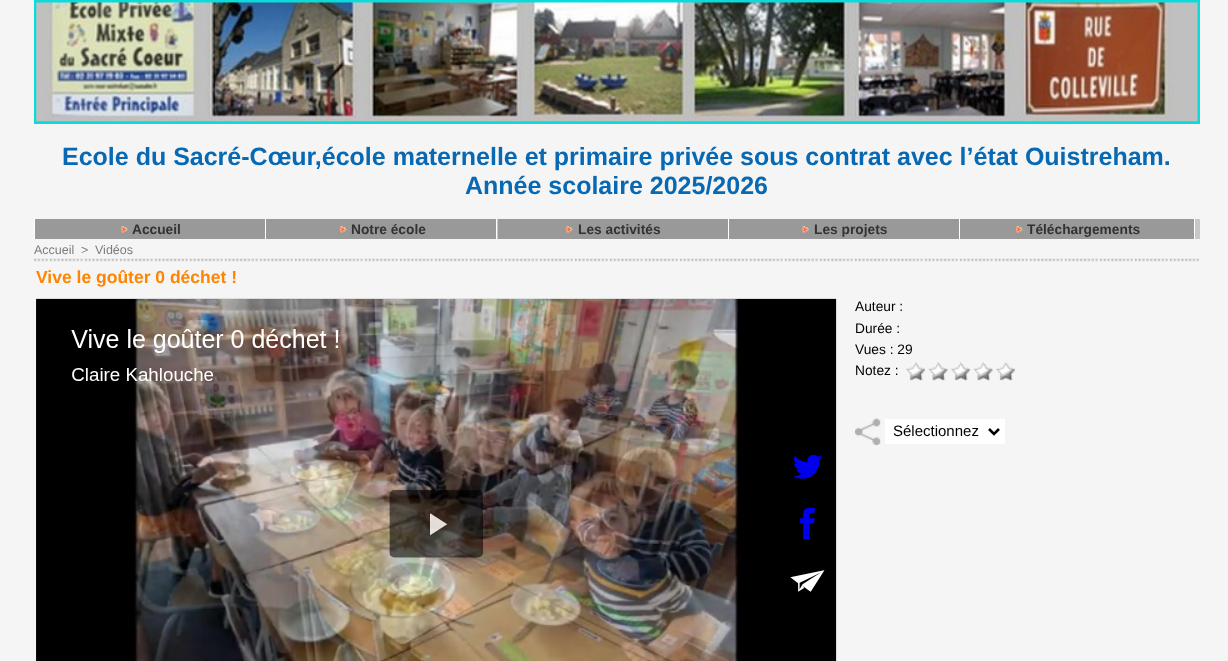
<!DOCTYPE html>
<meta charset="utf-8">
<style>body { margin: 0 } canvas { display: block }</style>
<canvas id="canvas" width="1228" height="661"></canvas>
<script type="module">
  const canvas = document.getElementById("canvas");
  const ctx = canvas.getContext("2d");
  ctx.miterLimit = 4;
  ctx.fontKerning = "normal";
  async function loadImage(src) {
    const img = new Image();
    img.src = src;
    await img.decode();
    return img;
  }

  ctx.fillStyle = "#f5f5f5";
  ctx.fillRect(0, 0, 1228, 661);
  ctx.fillStyle = "#0bdbdb";
  ctx.fillRect(34, 0, 1166, 124);
  ctx.drawImage(await loadImage("img1.png"), 36, 2, 1162, 120);
  ctx.font = "bold 25px Liberation Sans";
  ctx.fillStyle = "#0768b3";
  ctx.fillText("Ecole du Sacré-Cœur,école maternelle et primaire privée sous contrat avec l’état Ouistreham.", 62, 165);
  ctx.fillText("Année scolaire 2025/2026", 465, 194);
  ctx.fillStyle = "#c7c7c7";
  ctx.fillRect(497, 219, 703, 20);
  ctx.fillStyle = "#ffffff";
  ctx.fillRect(34, 219, 1, 20);
  ctx.fillRect(265, 219, 1, 20);
  ctx.fillStyle = "#999999";
  ctx.fillRect(35, 219, 230, 20);
  ctx.drawImage(await loadImage("img2.png"), 121, 226, 7, 7);
  ctx.font = "bold 13.75px Liberation Sans";
  ctx.fillStyle = "#333333";
  ctx.fillText("Accueil", 132, 234);
  ctx.fillStyle = "#ffffff";
  ctx.fillRect(496, 219, 1, 20);
  ctx.fillStyle = "#999999";
  ctx.fillRect(266, 219, 230, 20);
  ctx.drawImage(await loadImage("img3.png"), 339, 226, 8, 7);
  ctx.fillStyle = "#333333";
  ctx.fillText("Notre école", 351, 234);
  ctx.fillStyle = "#ffffff";
  ctx.fillRect(728, 219, 1, 20);
  ctx.fillStyle = "#999999";
  ctx.fillRect(498, 219, 230, 20);
  ctx.drawImage(await loadImage("img2.png"), 566, 226, 7, 7);
  ctx.fillStyle = "#333333";
  ctx.fillText("Les activités", 578, 234);
  ctx.fillStyle = "#ffffff";
  ctx.fillRect(959, 219, 1, 20);
  ctx.fillStyle = "#999999";
  ctx.fillRect(729, 219, 230, 20);
  ctx.drawImage(await loadImage("img4.png"), 802, 226, 7, 7);
  ctx.fillStyle = "#333333";
  ctx.fillText("Les projets", 814, 234);
  ctx.fillStyle = "#ffffff";
  ctx.fillRect(1194, 219, 1, 20);
  ctx.fillStyle = "#999999";
  ctx.fillRect(960, 219, 234, 20);
  ctx.drawImage(await loadImage("img5.png"), 1016, 226, 7, 7);
  ctx.fillStyle = "#333333";
  ctx.fillText("Téléchargements", 1027, 234);
  ctx.font = "12.5px Liberation Sans";
  ctx.fillStyle = "#7c7c7c";
  ctx.fillText("Accueil", 34, 254);
  ctx.fillText(">", 81, 254);
  ctx.fillText("Vidéos", 95, 254);
  ctx.drawImage(await loadImage("img6.png"), 34, 258, 1165, 4);
  ctx.font = "bold 17.5px Liberation Sans";
  ctx.fillStyle = "#ff8401";
  ctx.fillText("Vive le goûter 0 déchet !", 36, 283);
  ctx.drawImage(await loadImage("img7.png"), 36, 298, 801, 363);
  ctx.font = "13.75px Liberation Sans";
  ctx.fillStyle = "#000000";
  ctx.fillText("Auteur :", 855, 311);
  ctx.fillText("Durée :", 855, 333);
  ctx.fillText("Vues : 29", 855, 354);
  ctx.fillText("Notez :", 855, 375);
  ctx.drawImage(await loadImage("img8.png"), 906, 362, 19, 19);
  ctx.drawImage(await loadImage("img9.png"), 928, 362, 20, 19);
  ctx.drawImage(await loadImage("img8.png"), 951, 362, 19, 19);
  ctx.drawImage(await loadImage("img9.png"), 973, 362, 20, 19);
  ctx.drawImage(await loadImage("img8.png"), 996, 362, 19, 19);
  ctx.drawImage(await loadImage("img10.png"), 855, 418, 26, 27);
  ctx.fillStyle = "#ffffff";
  ctx.fillRect(885, 419, 120, 25);
  ctx.beginPath();
  ctx.moveTo(989, 429);
  ctx.lineTo(994, 434);
  ctx.lineTo(999, 429);
  ctx.strokeStyle = "#000000";
  ctx.lineWidth = 2.5;
  ctx.stroke();
  ctx.font = "15px Liberation Sans";
  ctx.fillStyle = "#000000";
  ctx.fillText("Sélectionnez", 893, 436);
</script>
